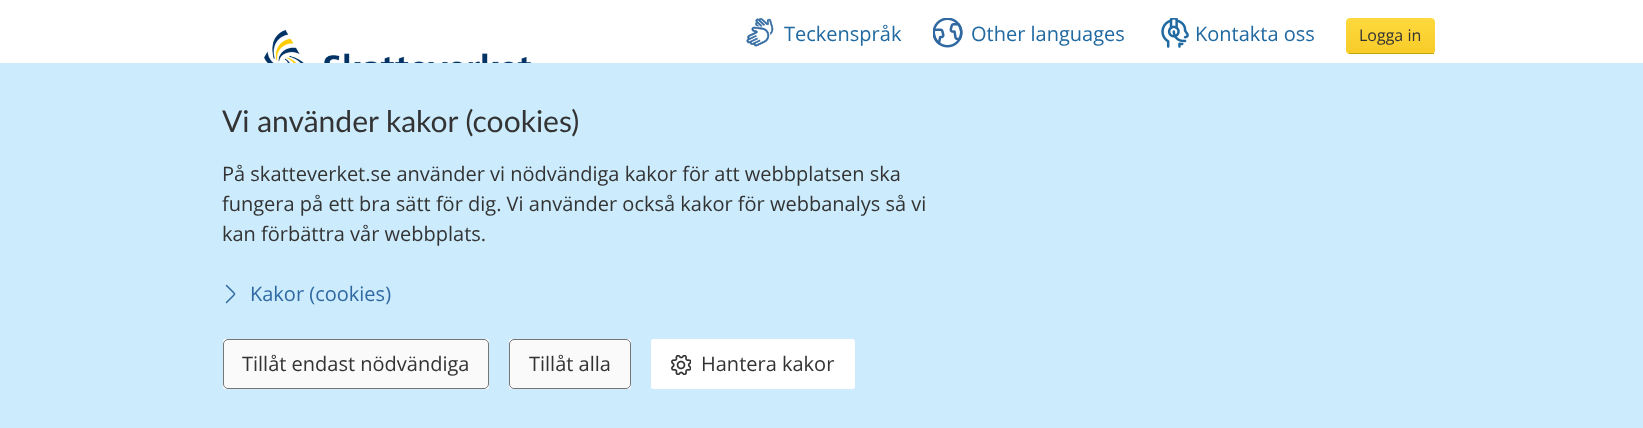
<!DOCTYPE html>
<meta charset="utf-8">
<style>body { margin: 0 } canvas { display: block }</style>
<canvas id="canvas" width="1643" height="428"></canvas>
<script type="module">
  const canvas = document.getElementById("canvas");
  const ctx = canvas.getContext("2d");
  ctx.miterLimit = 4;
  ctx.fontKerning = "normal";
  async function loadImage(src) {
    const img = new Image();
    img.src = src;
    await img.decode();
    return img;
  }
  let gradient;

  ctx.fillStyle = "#ffffff";
  ctx.fillRect(0, 0, 1643, 428);
  ctx.drawImage(await loadImage("img1.png"), 261, 30, 271, 33);
  ctx.drawImage(await loadImage("img2.png"), 746, 18, 28, 29);
  ctx.font = "20px Open Sans";
  ctx.fillStyle = "#2069a1";
  ctx.fillText("Teckenspråk", 784, 41);
  ctx.drawImage(await loadImage("img3.png"), 933, 18, 30, 30);
  ctx.fillText("Other languages", 971, 41);
  ctx.drawImage(await loadImage("img4.png"), 1161, 18, 28, 30);
  ctx.fillText("Kontakta oss", 1195, 41);
  ctx.save();
  ctx.beginPath();
  ctx.roundRect(1346, 18, 89, 36, 4);
  ctx.clip();
  gradient = ctx.createLinearGradient(1391, 17, 1391, 53);
  gradient.addColorStop(0, "#ffd93e");
  gradient.addColorStop(1, "#f7cc29");
  ctx.fillStyle = gradient;
  ctx.beginPath();
  ctx.roundRect(1346, 18, 89, 35, [4, 4, 0, 0]);
  ctx.fill();
  gradient = ctx.createLinearGradient(1391, 53, 1391, 88);
  gradient.addColorStop(0, "#ffd93e");
  gradient.addColorStop(1, "#f7cc29");
  ctx.fillStyle = gradient;
  ctx.fillRect(1346, 53, 3, 1);
  ctx.restore();
  ctx.fillStyle = "#c9a50d";
  ctx.fillRect(1349, 53, 85, 1);
  ctx.font = "16px Open Sans";
  ctx.fillStyle = "#333333";
  ctx.fillText("Logga in", 1359, 41);
  ctx.fillStyle = "#ccecfd";
  ctx.fillRect(0, 63, 1643, 365);
  ctx.font = "30px Lato";
  ctx.fillStyle = "#333333";
  ctx.fillText("Vi använder kakor (cookies)", 222, 132);
  ctx.font = "20px Open Sans";
  ctx.fillText("På skatteverket.se använder vi nödvändiga kakor för att webbplatsen ska", 222, 181);
  ctx.fillText("fungera på ett bra sätt för dig. Vi använder också kakor för webbanalys så vi", 222, 211);
  ctx.fillText("kan förbättra vår webbplats.", 222, 241);
  ctx.beginPath();
  ctx.moveTo(226.5, 285.5);
  ctx.lineTo(233.5, 292.5);
  ctx.bezierCurveTo(235, 294, 235, 294, 233.5, 295.5);
  ctx.lineTo(226.5, 302.5);
  ctx.strokeStyle = "#3069a1";
  ctx.lineWidth = 1.5;
  ctx.lineCap = "round";
  ctx.lineJoin = "round";
  ctx.stroke();
  ctx.fillStyle = "#3069a1";
  ctx.fillText("Kakor (cookies)", 250, 301);
  ctx.fillStyle = "#ffffff";
  ctx.beginPath();
  ctx.roundRect(223, 339, 266, 50, 2.5);
  ctx.fill();
  ctx.fillStyle = "#fafafa";
  ctx.beginPath();
  ctx.roundRect(223.5, 339.5, 265, 49, 4.5);
  ctx.fill();
  ctx.strokeStyle = "#767676";
  ctx.lineWidth = 1;
  ctx.lineJoin = "miter";
  ctx.stroke();
  ctx.fillStyle = "#333333";
  ctx.fillText("Tillåt endast nödvändiga", 242, 371);
  ctx.fillStyle = "#ffffff";
  ctx.beginPath();
  ctx.roundRect(509, 339, 122, 50, 2.5);
  ctx.fill();
  ctx.fillStyle = "#fafafa";
  ctx.beginPath();
  ctx.roundRect(509.5, 339.5, 121, 49, 4.5);
  ctx.fill();
  ctx.stroke();
  ctx.fillStyle = "#333333";
  ctx.fillText("Tillåt alla", 529, 371);
  ctx.fillStyle = "#ffffff";
  ctx.beginPath();
  ctx.roundRect(651, 339, 204, 50, 2.5);
  ctx.fill();
  ctx.drawImage(await loadImage("img5.png"), 671, 355, 20, 20);
  ctx.fillStyle = "#333333";
  ctx.fillText("Hantera kakor", 701, 371);
</script>
